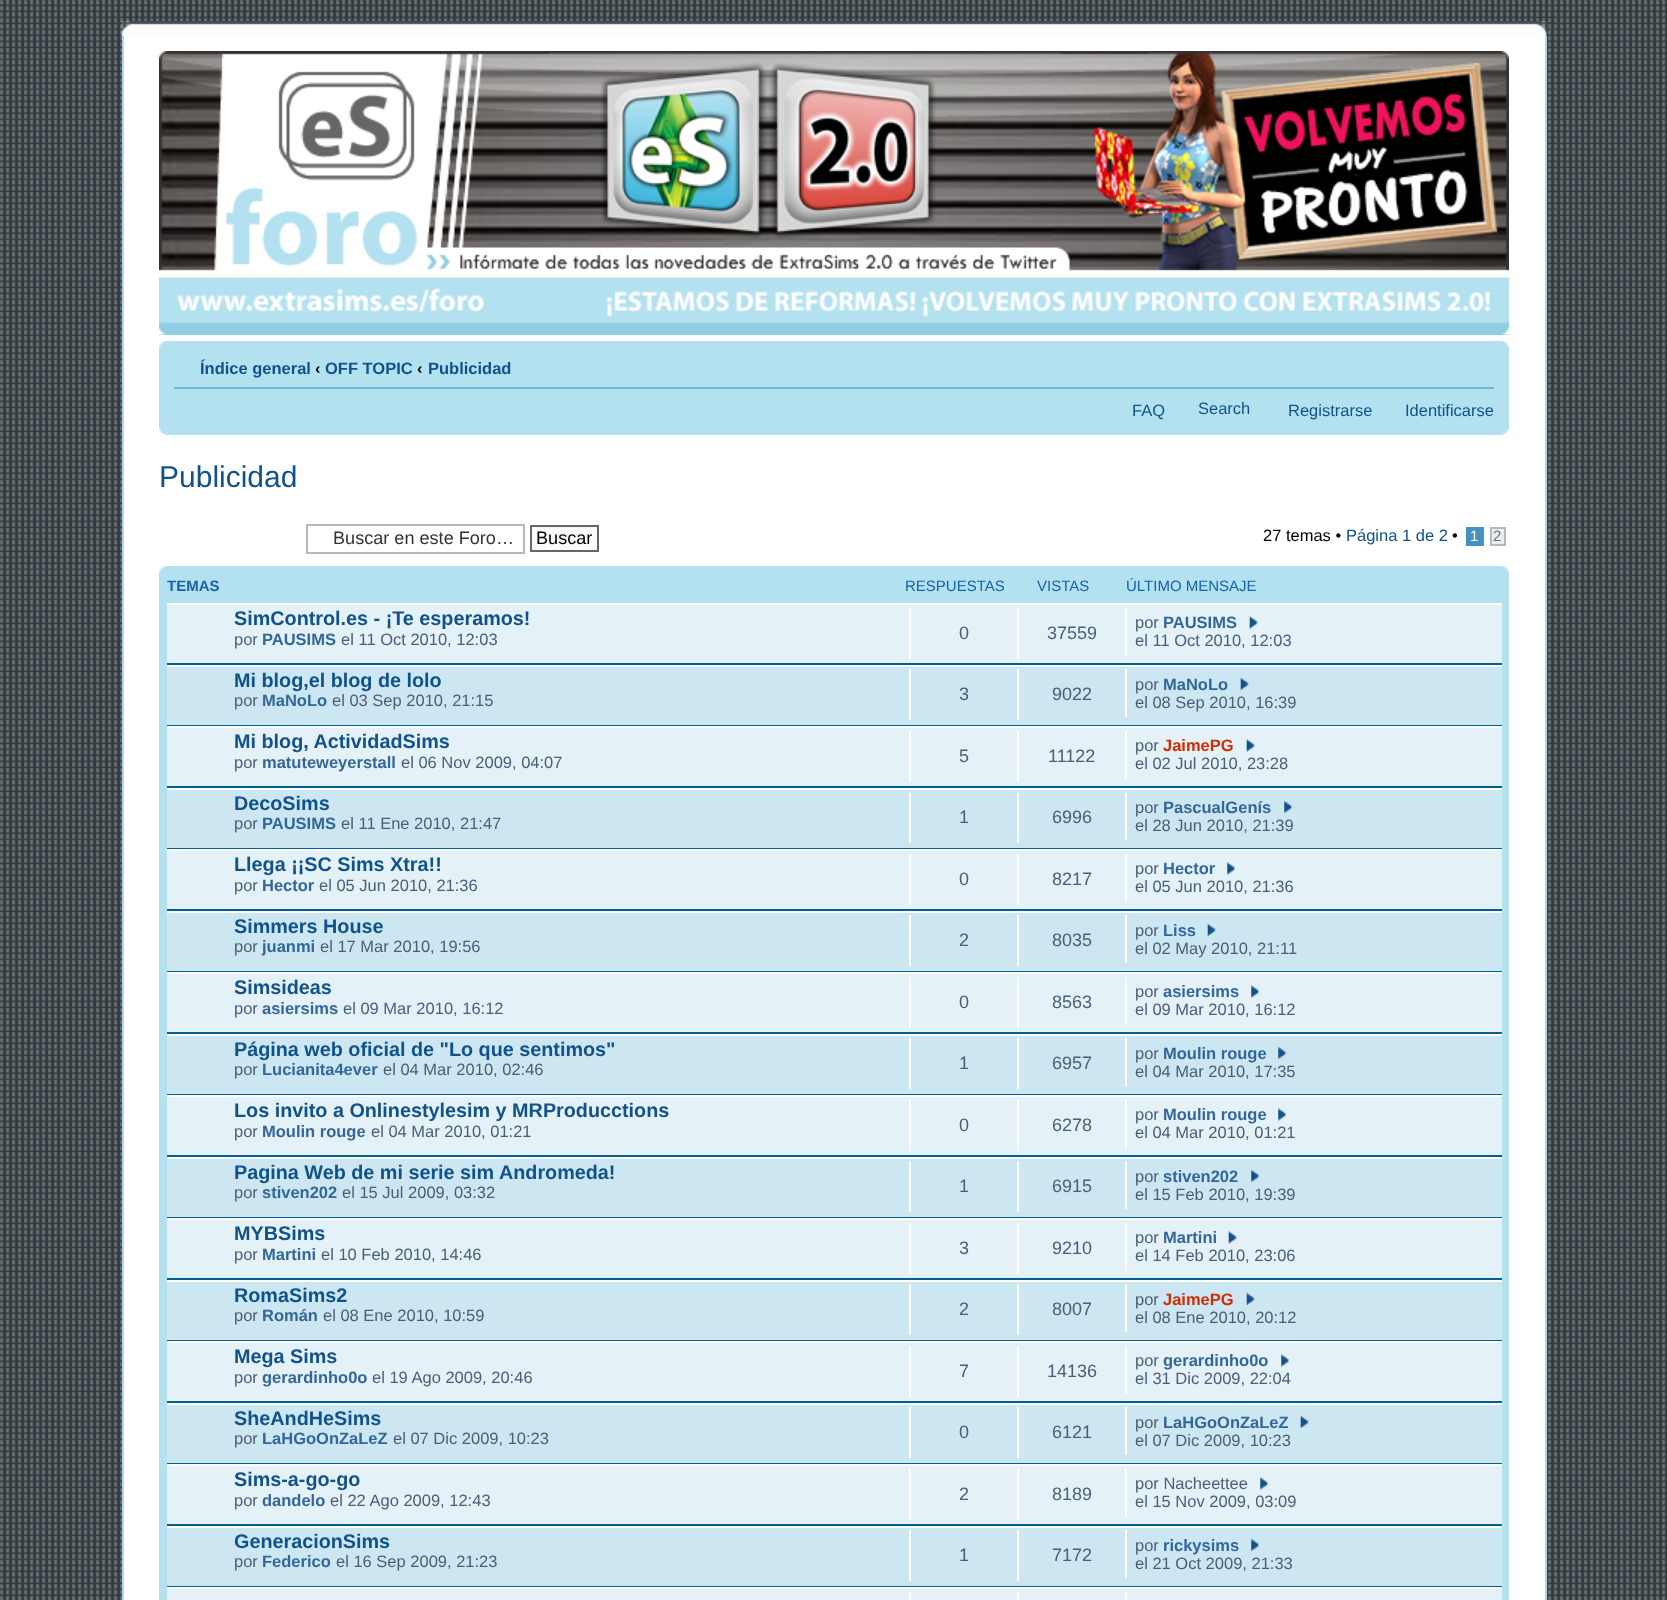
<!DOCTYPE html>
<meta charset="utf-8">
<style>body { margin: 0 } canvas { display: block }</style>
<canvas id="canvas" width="1667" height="1600"></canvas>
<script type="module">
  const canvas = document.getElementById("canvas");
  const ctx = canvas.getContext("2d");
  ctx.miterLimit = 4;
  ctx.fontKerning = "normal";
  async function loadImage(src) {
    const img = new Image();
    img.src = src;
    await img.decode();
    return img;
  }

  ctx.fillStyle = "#ffffff";
  ctx.fillRect(0, 0, 1667, 1600);
  ctx.drawImage(await loadImage("img1.png"), 0, 0, 1667, 1600);
  ctx.drawImage(await loadImage("img2.png"), 121, 21, 16, 15);
  ctx.drawImage(await loadImage("img3.png"), 137, 21, 1410, 15);
  ctx.fillRect(124, 36, 1421, 1564);
  ctx.fillStyle = "#afd6f0";
  ctx.fillRect(1545, 36, 2, 1564);
  ctx.fillRect(122, 36, 2, 1564);
  ctx.fillStyle = "#91cde3";
  ctx.fillRect(159, 325, 1350, 10);
  ctx.drawImage(await loadImage("img4.png"), 159, 51, 1350, 274);
  ctx.drawImage(await loadImage("img5.png"), 159, 51, 9, 8);
  ctx.drawImage(await loadImage("img6.png"), 1500, 51, 9, 8);
  ctx.drawImage(await loadImage("img7.png"), 159, 327, 8, 8);
  ctx.drawImage(await loadImage("img8.png"), 1501, 327, 8, 8);
  ctx.fillStyle = "#b4e1f0";
  ctx.fillRect(159, 341, 1350, 94);
  ctx.drawImage(await loadImage("img9.png"), 159, 341, 8, 7);
  ctx.drawImage(await loadImage("img10.png"), 1501, 341, 8, 7);
  ctx.fillStyle = "#69bbd9";
  ctx.fillRect(174, 387, 1320, 2);
  ctx.font = "bold 16.5px Liberation Sans";
  ctx.fillStyle = "#105289";
  ctx.fillText("Índice general", 200, 374);
  ctx.fillStyle = "#000000";
  ctx.fillText("‹", 315, 374);
  ctx.fillStyle = "#105289";
  ctx.fillText("OFF TOPIC", 325, 374);
  ctx.fillStyle = "#000000";
  ctx.fillText("‹", 417, 374);
  ctx.fillStyle = "#105289";
  ctx.fillText("Publicidad", 428, 374);
  ctx.font = "16.5px Liberation Sans";
  ctx.fillText("FAQ", 1132, 416);
  ctx.fillText("Search", 1198, 414);
  ctx.fillText("Registrarse", 1288, 416);
  ctx.fillText("Identificarse", 1405, 416);
  ctx.drawImage(await loadImage("img11.png"), 159, 427, 8, 8);
  ctx.drawImage(await loadImage("img12.png"), 1501, 427, 8, 8);
  ctx.font = "30px Liberation Sans";
  ctx.fillText("Publicidad", 159, 487);
  ctx.strokeStyle = "#b4bac0";
  ctx.lineWidth = 2;
  ctx.strokeRect(307, 525, 217, 28);
  ctx.font = "18.1px Liberation Sans";
  ctx.fillStyle = "#333333";
  ctx.fillText("Buscar en este Foro…", 333, 544);
  ctx.fillStyle = "#fafafa";
  ctx.beginPath();
  ctx.rect(531, 526, 67, 25);
  ctx.fill();
  ctx.strokeStyle = "#666666";
  ctx.stroke();
  ctx.fillStyle = "#000000";
  ctx.fillText("Buscar", 536, 544);
  ctx.font = "16.5px Liberation Sans";
  ctx.fillText("27 temas •", 1263, 541);
  ctx.fillStyle = "#105289";
  ctx.fillText("Página 1 de 2", 1346, 541);
  ctx.fillStyle = "#000000";
  ctx.fillText("•", 1452, 541);
  ctx.fillStyle = "#4692bf";
  ctx.fillRect(1466, 527, 18, 19);
  ctx.font = "15px Liberation Sans";
  ctx.fillStyle = "#ffffff";
  ctx.fillText("1", 1470, 541);
  ctx.fillStyle = "#ecedee";
  ctx.beginPath();
  ctx.rect(1491, 528, 14, 17);
  ctx.fill();
  ctx.strokeStyle = "#b4bac0";
  ctx.stroke();
  ctx.fillStyle = "#5c758c";
  ctx.fillText("2", 1493, 541);
  ctx.fillStyle = "#b4e1f0";
  ctx.fillRect(159, 566, 1350, 1034);
  ctx.drawImage(await loadImage("img9.png"), 159, 566, 8, 7);
  ctx.drawImage(await loadImage("img10.png"), 1501, 566, 8, 7);
  ctx.save();
  ctx.beginPath();
  ctx.rect(167, 573, 1335, 30);
  ctx.clip();
  ctx.font = "bold 15px Liberation Sans";
  ctx.fillStyle = "#1662ad";
  ctx.fillText("TEMAS", 167, 591);
  ctx.restore();
  ctx.fillStyle = "#1662ad";
  ctx.fillText("RESPUESTAS", 905, 591);
  ctx.fillText("VISTAS", 1037, 591);
  ctx.fillText("ÚLTIMO MENSAJE", 1126, 591);
  ctx.fillStyle = "#e4f2f8";
  ctx.fillRect(167, 605, 1335, 58);
  ctx.fillStyle = "#ffffff";
  ctx.fillRect(167, 603, 1335, 2);
  ctx.fillStyle = "#00608f";
  ctx.fillRect(167, 663, 1335, 2);
  ctx.font = "bold 19.8px Liberation Sans";
  ctx.fillStyle = "#105289";
  ctx.fillText("SimControl.es - ¡Te esperamos!", 234, 625);
  ctx.font = "16.5px Liberation Sans";
  ctx.fillStyle = "#4c5d77";
  ctx.fillText("por", 234, 645);
  ctx.font = "bold 16.5px Liberation Sans";
  ctx.fillStyle = "#336699";
  ctx.fillText("PAUSIMS", 262, 645);
  ctx.font = "16.5px Liberation Sans";
  ctx.fillStyle = "#4c5d77";
  ctx.fillText("el 11 Oct 2010, 12:03", 341, 645);
  ctx.fillStyle = "#ffffff";
  ctx.fillRect(909, 608, 2, 51);
  ctx.font = "18px Liberation Sans";
  ctx.fillStyle = "#4c5d77";
  ctx.fillText("0", 959, 639);
  ctx.fillStyle = "#ffffff";
  ctx.fillRect(1017, 608, 2, 51);
  ctx.fillStyle = "#4c5d77";
  ctx.fillText("37559", 1047, 639);
  ctx.fillStyle = "#ffffff";
  ctx.fillRect(1125, 608, 2, 48);
  ctx.font = "16.5px Liberation Sans";
  ctx.fillStyle = "#4c5d77";
  ctx.fillText("por", 1135, 628);
  ctx.font = "bold 16.5px Liberation Sans";
  ctx.fillStyle = "#336699";
  ctx.fillText("PAUSIMS", 1163, 628);
  ctx.drawImage(await loadImage("img13.png"), 1249, 616, 9, 13);
  ctx.font = "16.5px Liberation Sans";
  ctx.fillStyle = "#4c5d77";
  ctx.fillText("el 11 Oct 2010, 12:03", 1135, 646);
  ctx.fillStyle = "#cce7f2";
  ctx.fillRect(167, 667, 1335, 58);
  ctx.fillStyle = "#ffffff";
  ctx.fillRect(167, 665, 1335, 2);
  ctx.fillStyle = "#00608f";
  ctx.fillRect(167, 725, 1335, 1);
  ctx.font = "bold 19.8px Liberation Sans";
  ctx.fillStyle = "#105289";
  ctx.fillText("Mi blog,el blog de lolo", 234, 687);
  ctx.font = "16.5px Liberation Sans";
  ctx.fillStyle = "#4c5d77";
  ctx.fillText("por", 234, 706);
  ctx.font = "bold 16.5px Liberation Sans";
  ctx.fillStyle = "#336699";
  ctx.fillText("MaNoLo", 262, 706);
  ctx.font = "16.5px Liberation Sans";
  ctx.fillStyle = "#4c5d77";
  ctx.fillText("el 03 Sep 2010, 21:15", 332, 706);
  ctx.fillStyle = "#ffffff";
  ctx.fillRect(909, 669, 2, 51);
  ctx.font = "18px Liberation Sans";
  ctx.fillStyle = "#4c5d77";
  ctx.fillText("3", 959, 700);
  ctx.fillStyle = "#ffffff";
  ctx.fillRect(1017, 669, 2, 51);
  ctx.fillStyle = "#4c5d77";
  ctx.fillText("9022", 1052, 700);
  ctx.fillStyle = "#ffffff";
  ctx.fillRect(1125, 669, 2, 48);
  ctx.font = "16.5px Liberation Sans";
  ctx.fillStyle = "#4c5d77";
  ctx.fillText("por", 1135, 690);
  ctx.font = "bold 16.5px Liberation Sans";
  ctx.fillStyle = "#336699";
  ctx.fillText("MaNoLo", 1163, 690);
  ctx.drawImage(await loadImage("img14.png"), 1240, 677, 9, 13);
  ctx.font = "16.5px Liberation Sans";
  ctx.fillStyle = "#4c5d77";
  ctx.fillText("el 08 Sep 2010, 16:39", 1135, 708);
  ctx.fillStyle = "#e4f2f8";
  ctx.fillRect(167, 728, 1335, 58);
  ctx.fillStyle = "#ffffff";
  ctx.fillRect(167, 726, 1335, 2);
  ctx.fillStyle = "#00608f";
  ctx.fillRect(167, 786, 1335, 2);
  ctx.font = "bold 19.8px Liberation Sans";
  ctx.fillStyle = "#105289";
  ctx.fillText("Mi blog, ActividadSims", 234, 748);
  ctx.font = "16.5px Liberation Sans";
  ctx.fillStyle = "#4c5d77";
  ctx.fillText("por", 234, 768);
  ctx.font = "bold 16.5px Liberation Sans";
  ctx.fillStyle = "#336699";
  ctx.fillText("matuteweyerstall", 262, 768);
  ctx.font = "16.5px Liberation Sans";
  ctx.fillStyle = "#4c5d77";
  ctx.fillText("el 06 Nov 2009, 04:07", 401, 768);
  ctx.fillStyle = "#ffffff";
  ctx.fillRect(909, 731, 2, 51);
  ctx.font = "18px Liberation Sans";
  ctx.fillStyle = "#4c5d77";
  ctx.fillText("5", 959, 762);
  ctx.fillStyle = "#ffffff";
  ctx.fillRect(1017, 731, 2, 51);
  ctx.fillStyle = "#4c5d77";
  ctx.fillText("11122", 1048, 762);
  ctx.fillStyle = "#ffffff";
  ctx.fillRect(1125, 731, 2, 48);
  ctx.font = "16.5px Liberation Sans";
  ctx.fillStyle = "#4c5d77";
  ctx.fillText("por", 1135, 751);
  ctx.font = "bold 16.5px Liberation Sans";
  ctx.fillStyle = "#d52b00";
  ctx.fillText("JaimePG", 1163, 751);
  ctx.drawImage(await loadImage("img13.png"), 1246, 739, 9, 13);
  ctx.font = "16.5px Liberation Sans";
  ctx.fillStyle = "#4c5d77";
  ctx.fillText("el 02 Jul 2010, 23:28", 1135, 769);
  ctx.fillStyle = "#cce7f2";
  ctx.fillRect(167, 790, 1335, 58);
  ctx.fillStyle = "#ffffff";
  ctx.fillRect(167, 788, 1335, 2);
  ctx.fillStyle = "#00608f";
  ctx.fillRect(167, 848, 1335, 1);
  ctx.font = "bold 19.8px Liberation Sans";
  ctx.fillStyle = "#105289";
  ctx.fillText("DecoSims", 234, 810);
  ctx.font = "16.5px Liberation Sans";
  ctx.fillStyle = "#4c5d77";
  ctx.fillText("por", 234, 829);
  ctx.font = "bold 16.5px Liberation Sans";
  ctx.fillStyle = "#336699";
  ctx.fillText("PAUSIMS", 262, 829);
  ctx.font = "16.5px Liberation Sans";
  ctx.fillStyle = "#4c5d77";
  ctx.fillText("el 11 Ene 2010, 21:47", 341, 829);
  ctx.fillStyle = "#ffffff";
  ctx.fillRect(909, 792, 2, 51);
  ctx.font = "18px Liberation Sans";
  ctx.fillStyle = "#4c5d77";
  ctx.fillText("1", 959, 823);
  ctx.fillStyle = "#ffffff";
  ctx.fillRect(1017, 792, 2, 51);
  ctx.fillStyle = "#4c5d77";
  ctx.fillText("6996", 1052, 823);
  ctx.fillStyle = "#ffffff";
  ctx.fillRect(1125, 792, 2, 48);
  ctx.font = "16.5px Liberation Sans";
  ctx.fillStyle = "#4c5d77";
  ctx.fillText("por", 1135, 813);
  ctx.font = "bold 16.5px Liberation Sans";
  ctx.fillStyle = "#336699";
  ctx.fillText("PascualGenís", 1163, 813);
  ctx.drawImage(await loadImage("img15.png"), 1284, 800, 8, 13);
  ctx.font = "16.5px Liberation Sans";
  ctx.fillStyle = "#4c5d77";
  ctx.fillText("el 28 Jun 2010, 21:39", 1135, 831);
  ctx.fillStyle = "#e4f2f8";
  ctx.fillRect(167, 851, 1335, 58);
  ctx.fillStyle = "#ffffff";
  ctx.fillRect(167, 849, 1335, 2);
  ctx.fillStyle = "#00608f";
  ctx.fillRect(167, 909, 1335, 2);
  ctx.font = "bold 19.8px Liberation Sans";
  ctx.fillStyle = "#105289";
  ctx.fillText("Llega ¡¡SC Sims Xtra!!", 234, 871);
  ctx.font = "16.5px Liberation Sans";
  ctx.fillStyle = "#4c5d77";
  ctx.fillText("por", 234, 891);
  ctx.font = "bold 16.5px Liberation Sans";
  ctx.fillStyle = "#336699";
  ctx.fillText("Hector", 262, 891);
  ctx.font = "16.5px Liberation Sans";
  ctx.fillStyle = "#4c5d77";
  ctx.fillText("el 05 Jun 2010, 21:36", 319, 891);
  ctx.fillStyle = "#ffffff";
  ctx.fillRect(909, 854, 2, 51);
  ctx.font = "18px Liberation Sans";
  ctx.fillStyle = "#4c5d77";
  ctx.fillText("0", 959, 885);
  ctx.fillStyle = "#ffffff";
  ctx.fillRect(1017, 854, 2, 51);
  ctx.fillStyle = "#4c5d77";
  ctx.fillText("8217", 1052, 885);
  ctx.fillStyle = "#ffffff";
  ctx.fillRect(1125, 854, 2, 48);
  ctx.font = "16.5px Liberation Sans";
  ctx.fillStyle = "#4c5d77";
  ctx.fillText("por", 1135, 874);
  ctx.font = "bold 16.5px Liberation Sans";
  ctx.fillStyle = "#336699";
  ctx.fillText("Hector", 1163, 874);
  ctx.drawImage(await loadImage("img16.png"), 1227, 862, 8, 13);
  ctx.font = "16.5px Liberation Sans";
  ctx.fillStyle = "#4c5d77";
  ctx.fillText("el 05 Jun 2010, 21:36", 1135, 892);
  ctx.fillStyle = "#cce7f2";
  ctx.fillRect(167, 913, 1335, 58);
  ctx.fillStyle = "#ffffff";
  ctx.fillRect(167, 911, 1335, 2);
  ctx.fillStyle = "#00608f";
  ctx.fillRect(167, 971, 1335, 1);
  ctx.font = "bold 19.8px Liberation Sans";
  ctx.fillStyle = "#105289";
  ctx.fillText("Simmers House", 234, 933);
  ctx.font = "16.5px Liberation Sans";
  ctx.fillStyle = "#4c5d77";
  ctx.fillText("por", 234, 952);
  ctx.font = "bold 16.5px Liberation Sans";
  ctx.fillStyle = "#336699";
  ctx.fillText("juanmi", 262, 952);
  ctx.font = "16.5px Liberation Sans";
  ctx.fillStyle = "#4c5d77";
  ctx.fillText("el 17 Mar 2010, 19:56", 320, 952);
  ctx.fillStyle = "#ffffff";
  ctx.fillRect(909, 915, 2, 51);
  ctx.font = "18px Liberation Sans";
  ctx.fillStyle = "#4c5d77";
  ctx.fillText("2", 959, 946);
  ctx.fillStyle = "#ffffff";
  ctx.fillRect(1017, 915, 2, 51);
  ctx.fillStyle = "#4c5d77";
  ctx.fillText("8035", 1052, 946);
  ctx.fillStyle = "#ffffff";
  ctx.fillRect(1125, 915, 2, 48);
  ctx.font = "16.5px Liberation Sans";
  ctx.fillStyle = "#4c5d77";
  ctx.fillText("por", 1135, 936);
  ctx.font = "bold 16.5px Liberation Sans";
  ctx.fillStyle = "#336699";
  ctx.fillText("Liss", 1163, 936);
  ctx.drawImage(await loadImage("img14.png"), 1207, 923, 9, 13);
  ctx.font = "16.5px Liberation Sans";
  ctx.fillStyle = "#4c5d77";
  ctx.fillText("el 02 May 2010, 21:11", 1135, 954);
  ctx.fillStyle = "#e4f2f8";
  ctx.fillRect(167, 974, 1335, 58);
  ctx.fillStyle = "#ffffff";
  ctx.fillRect(167, 972, 1335, 2);
  ctx.fillStyle = "#00608f";
  ctx.fillRect(167, 1032, 1335, 2);
  ctx.font = "bold 19.8px Liberation Sans";
  ctx.fillStyle = "#105289";
  ctx.fillText("Simsideas", 234, 994);
  ctx.font = "16.5px Liberation Sans";
  ctx.fillStyle = "#4c5d77";
  ctx.fillText("por", 234, 1014);
  ctx.font = "bold 16.5px Liberation Sans";
  ctx.fillStyle = "#336699";
  ctx.fillText("asiersims", 262, 1014);
  ctx.font = "16.5px Liberation Sans";
  ctx.fillStyle = "#4c5d77";
  ctx.fillText("el 09 Mar 2010, 16:12", 343, 1014);
  ctx.fillStyle = "#ffffff";
  ctx.fillRect(909, 977, 2, 51);
  ctx.font = "18px Liberation Sans";
  ctx.fillStyle = "#4c5d77";
  ctx.fillText("0", 959, 1008);
  ctx.fillStyle = "#ffffff";
  ctx.fillRect(1017, 977, 2, 51);
  ctx.fillStyle = "#4c5d77";
  ctx.fillText("8563", 1052, 1008);
  ctx.fillStyle = "#ffffff";
  ctx.fillRect(1125, 977, 2, 48);
  ctx.font = "16.5px Liberation Sans";
  ctx.fillStyle = "#4c5d77";
  ctx.fillText("por", 1135, 997);
  ctx.font = "bold 16.5px Liberation Sans";
  ctx.fillStyle = "#336699";
  ctx.fillText("asiersims", 1163, 997);
  ctx.drawImage(await loadImage("img16.png"), 1251, 985, 8, 13);
  ctx.font = "16.5px Liberation Sans";
  ctx.fillStyle = "#4c5d77";
  ctx.fillText("el 09 Mar 2010, 16:12", 1135, 1015);
  ctx.fillStyle = "#cce7f2";
  ctx.fillRect(167, 1036, 1335, 58);
  ctx.fillStyle = "#ffffff";
  ctx.fillRect(167, 1034, 1335, 2);
  ctx.fillStyle = "#00608f";
  ctx.fillRect(167, 1094, 1335, 1);
  ctx.font = "bold 19.8px Liberation Sans";
  ctx.fillStyle = "#105289";
  ctx.fillText("Página web oficial de \"Lo que sentimos\"", 234, 1056);
  ctx.font = "16.5px Liberation Sans";
  ctx.fillStyle = "#4c5d77";
  ctx.fillText("por", 234, 1075);
  ctx.font = "bold 16.5px Liberation Sans";
  ctx.fillStyle = "#336699";
  ctx.fillText("Lucianita4ever", 262, 1075);
  ctx.font = "16.5px Liberation Sans";
  ctx.fillStyle = "#4c5d77";
  ctx.fillText("el 04 Mar 2010, 02:46", 383, 1075);
  ctx.fillStyle = "#ffffff";
  ctx.fillRect(909, 1038, 2, 51);
  ctx.font = "18px Liberation Sans";
  ctx.fillStyle = "#4c5d77";
  ctx.fillText("1", 959, 1069);
  ctx.fillStyle = "#ffffff";
  ctx.fillRect(1017, 1038, 2, 51);
  ctx.fillStyle = "#4c5d77";
  ctx.fillText("6957", 1052, 1069);
  ctx.fillStyle = "#ffffff";
  ctx.fillRect(1125, 1038, 2, 48);
  ctx.font = "16.5px Liberation Sans";
  ctx.fillStyle = "#4c5d77";
  ctx.fillText("por", 1135, 1059);
  ctx.font = "bold 16.5px Liberation Sans";
  ctx.fillStyle = "#336699";
  ctx.fillText("Moulin rouge", 1163, 1059);
  ctx.drawImage(await loadImage("img15.png"), 1278, 1046, 8, 13);
  ctx.font = "16.5px Liberation Sans";
  ctx.fillStyle = "#4c5d77";
  ctx.fillText("el 04 Mar 2010, 17:35", 1135, 1077);
  ctx.fillStyle = "#e4f2f8";
  ctx.fillRect(167, 1097, 1335, 58);
  ctx.fillStyle = "#ffffff";
  ctx.fillRect(167, 1095, 1335, 2);
  ctx.fillStyle = "#00608f";
  ctx.fillRect(167, 1155, 1335, 2);
  ctx.font = "bold 19.8px Liberation Sans";
  ctx.fillStyle = "#105289";
  ctx.fillText("Los invito a Onlinestylesim y MRProducctions", 234, 1117);
  ctx.font = "16.5px Liberation Sans";
  ctx.fillStyle = "#4c5d77";
  ctx.fillText("por", 234, 1137);
  ctx.font = "bold 16.5px Liberation Sans";
  ctx.fillStyle = "#336699";
  ctx.fillText("Moulin rouge", 262, 1137);
  ctx.font = "16.5px Liberation Sans";
  ctx.fillStyle = "#4c5d77";
  ctx.fillText("el 04 Mar 2010, 01:21", 371, 1137);
  ctx.fillStyle = "#ffffff";
  ctx.fillRect(909, 1100, 2, 51);
  ctx.font = "18px Liberation Sans";
  ctx.fillStyle = "#4c5d77";
  ctx.fillText("0", 959, 1131);
  ctx.fillStyle = "#ffffff";
  ctx.fillRect(1017, 1100, 2, 51);
  ctx.fillStyle = "#4c5d77";
  ctx.fillText("6278", 1052, 1131);
  ctx.fillStyle = "#ffffff";
  ctx.fillRect(1125, 1100, 2, 48);
  ctx.font = "16.5px Liberation Sans";
  ctx.fillStyle = "#4c5d77";
  ctx.fillText("por", 1135, 1120);
  ctx.font = "bold 16.5px Liberation Sans";
  ctx.fillStyle = "#336699";
  ctx.fillText("Moulin rouge", 1163, 1120);
  ctx.drawImage(await loadImage("img16.png"), 1278, 1108, 8, 13);
  ctx.font = "16.5px Liberation Sans";
  ctx.fillStyle = "#4c5d77";
  ctx.fillText("el 04 Mar 2010, 01:21", 1135, 1138);
  ctx.fillStyle = "#cce7f2";
  ctx.fillRect(167, 1159, 1335, 58);
  ctx.fillStyle = "#ffffff";
  ctx.fillRect(167, 1157, 1335, 2);
  ctx.fillStyle = "#00608f";
  ctx.fillRect(167, 1217, 1335, 1);
  ctx.font = "bold 19.8px Liberation Sans";
  ctx.fillStyle = "#105289";
  ctx.fillText("Pagina Web de mi serie sim Andromeda!", 234, 1179);
  ctx.font = "16.5px Liberation Sans";
  ctx.fillStyle = "#4c5d77";
  ctx.fillText("por", 234, 1198);
  ctx.font = "bold 16.5px Liberation Sans";
  ctx.fillStyle = "#336699";
  ctx.fillText("stiven202", 262, 1198);
  ctx.font = "16.5px Liberation Sans";
  ctx.fillStyle = "#4c5d77";
  ctx.fillText("el 15 Jul 2009, 03:32", 342, 1198);
  ctx.fillStyle = "#ffffff";
  ctx.fillRect(909, 1161, 2, 51);
  ctx.font = "18px Liberation Sans";
  ctx.fillStyle = "#4c5d77";
  ctx.fillText("1", 959, 1192);
  ctx.fillStyle = "#ffffff";
  ctx.fillRect(1017, 1161, 2, 51);
  ctx.fillStyle = "#4c5d77";
  ctx.fillText("6915", 1052, 1192);
  ctx.fillStyle = "#ffffff";
  ctx.fillRect(1125, 1161, 2, 48);
  ctx.font = "16.5px Liberation Sans";
  ctx.fillStyle = "#4c5d77";
  ctx.fillText("por", 1135, 1182);
  ctx.font = "bold 16.5px Liberation Sans";
  ctx.fillStyle = "#336699";
  ctx.fillText("stiven202", 1163, 1182);
  ctx.drawImage(await loadImage("img15.png"), 1251, 1169, 8, 13);
  ctx.font = "16.5px Liberation Sans";
  ctx.fillStyle = "#4c5d77";
  ctx.fillText("el 15 Feb 2010, 19:39", 1135, 1200);
  ctx.fillStyle = "#e4f2f8";
  ctx.fillRect(167, 1220, 1335, 58);
  ctx.fillStyle = "#ffffff";
  ctx.fillRect(167, 1218, 1335, 2);
  ctx.fillStyle = "#00608f";
  ctx.fillRect(167, 1278, 1335, 2);
  ctx.font = "bold 19.8px Liberation Sans";
  ctx.fillStyle = "#105289";
  ctx.fillText("MYBSims", 234, 1240);
  ctx.font = "16.5px Liberation Sans";
  ctx.fillStyle = "#4c5d77";
  ctx.fillText("por", 234, 1260);
  ctx.font = "bold 16.5px Liberation Sans";
  ctx.fillStyle = "#336699";
  ctx.fillText("Martini", 262, 1260);
  ctx.font = "16.5px Liberation Sans";
  ctx.fillStyle = "#4c5d77";
  ctx.fillText("el 10 Feb 2010, 14:46", 321, 1260);
  ctx.fillStyle = "#ffffff";
  ctx.fillRect(909, 1223, 2, 51);
  ctx.font = "18px Liberation Sans";
  ctx.fillStyle = "#4c5d77";
  ctx.fillText("3", 959, 1254);
  ctx.fillStyle = "#ffffff";
  ctx.fillRect(1017, 1223, 2, 51);
  ctx.fillStyle = "#4c5d77";
  ctx.fillText("9210", 1052, 1254);
  ctx.fillStyle = "#ffffff";
  ctx.fillRect(1125, 1223, 2, 48);
  ctx.font = "16.5px Liberation Sans";
  ctx.fillStyle = "#4c5d77";
  ctx.fillText("por", 1135, 1243);
  ctx.font = "bold 16.5px Liberation Sans";
  ctx.fillStyle = "#336699";
  ctx.fillText("Martini", 1163, 1243);
  ctx.drawImage(await loadImage("img13.png"), 1228, 1231, 9, 13);
  ctx.font = "16.5px Liberation Sans";
  ctx.fillStyle = "#4c5d77";
  ctx.fillText("el 14 Feb 2010, 23:06", 1135, 1261);
  ctx.fillStyle = "#cce7f2";
  ctx.fillRect(167, 1282, 1335, 58);
  ctx.fillStyle = "#ffffff";
  ctx.fillRect(167, 1280, 1335, 2);
  ctx.fillStyle = "#00608f";
  ctx.fillRect(167, 1340, 1335, 1);
  ctx.font = "bold 19.8px Liberation Sans";
  ctx.fillStyle = "#105289";
  ctx.fillText("RomaSims2", 234, 1302);
  ctx.font = "16.5px Liberation Sans";
  ctx.fillStyle = "#4c5d77";
  ctx.fillText("por", 234, 1321);
  ctx.font = "bold 16.5px Liberation Sans";
  ctx.fillStyle = "#336699";
  ctx.fillText("Román", 262, 1321);
  ctx.font = "16.5px Liberation Sans";
  ctx.fillStyle = "#4c5d77";
  ctx.fillText("el 08 Ene 2010, 10:59", 323, 1321);
  ctx.fillStyle = "#ffffff";
  ctx.fillRect(909, 1284, 2, 51);
  ctx.font = "18px Liberation Sans";
  ctx.fillStyle = "#4c5d77";
  ctx.fillText("2", 959, 1315);
  ctx.fillStyle = "#ffffff";
  ctx.fillRect(1017, 1284, 2, 51);
  ctx.fillStyle = "#4c5d77";
  ctx.fillText("8007", 1052, 1315);
  ctx.fillStyle = "#ffffff";
  ctx.fillRect(1125, 1284, 2, 48);
  ctx.font = "16.5px Liberation Sans";
  ctx.fillStyle = "#4c5d77";
  ctx.fillText("por", 1135, 1305);
  ctx.font = "bold 16.5px Liberation Sans";
  ctx.fillStyle = "#d52b00";
  ctx.fillText("JaimePG", 1163, 1305);
  ctx.drawImage(await loadImage("img14.png"), 1246, 1292, 9, 13);
  ctx.font = "16.5px Liberation Sans";
  ctx.fillStyle = "#4c5d77";
  ctx.fillText("el 08 Ene 2010, 20:12", 1135, 1323);
  ctx.fillStyle = "#e4f2f8";
  ctx.fillRect(167, 1343, 1335, 58);
  ctx.fillStyle = "#ffffff";
  ctx.fillRect(167, 1341, 1335, 2);
  ctx.fillStyle = "#00608f";
  ctx.fillRect(167, 1401, 1335, 2);
  ctx.font = "bold 19.8px Liberation Sans";
  ctx.fillStyle = "#105289";
  ctx.fillText("Mega Sims", 234, 1363);
  ctx.font = "16.5px Liberation Sans";
  ctx.fillStyle = "#4c5d77";
  ctx.fillText("por", 234, 1383);
  ctx.font = "bold 16.5px Liberation Sans";
  ctx.fillStyle = "#336699";
  ctx.fillText("gerardinho0o", 262, 1383);
  ctx.font = "16.5px Liberation Sans";
  ctx.fillStyle = "#4c5d77";
  ctx.fillText("el 19 Ago 2009, 20:46", 372, 1383);
  ctx.fillStyle = "#ffffff";
  ctx.fillRect(909, 1346, 2, 51);
  ctx.font = "18px Liberation Sans";
  ctx.fillStyle = "#4c5d77";
  ctx.fillText("7", 959, 1377);
  ctx.fillStyle = "#ffffff";
  ctx.fillRect(1017, 1346, 2, 51);
  ctx.fillStyle = "#4c5d77";
  ctx.fillText("14136", 1047, 1377);
  ctx.fillStyle = "#ffffff";
  ctx.fillRect(1125, 1346, 2, 48);
  ctx.font = "16.5px Liberation Sans";
  ctx.fillStyle = "#4c5d77";
  ctx.fillText("por", 1135, 1366);
  ctx.font = "bold 16.5px Liberation Sans";
  ctx.fillStyle = "#336699";
  ctx.fillText("gerardinho0o", 1163, 1366);
  ctx.drawImage(await loadImage("img16.png"), 1281, 1354, 8, 13);
  ctx.font = "16.5px Liberation Sans";
  ctx.fillStyle = "#4c5d77";
  ctx.fillText("el 31 Dic 2009, 22:04", 1135, 1384);
  ctx.fillStyle = "#cce7f2";
  ctx.fillRect(167, 1405, 1335, 58);
  ctx.fillStyle = "#ffffff";
  ctx.fillRect(167, 1403, 1335, 2);
  ctx.fillStyle = "#00608f";
  ctx.fillRect(167, 1463, 1335, 1);
  ctx.font = "bold 19.8px Liberation Sans";
  ctx.fillStyle = "#105289";
  ctx.fillText("SheAndHeSims", 234, 1425);
  ctx.font = "16.5px Liberation Sans";
  ctx.fillStyle = "#4c5d77";
  ctx.fillText("por", 234, 1444);
  ctx.font = "bold 16.5px Liberation Sans";
  ctx.fillStyle = "#336699";
  ctx.fillText("LaHGoOnZaLeZ", 262, 1444);
  ctx.font = "16.5px Liberation Sans";
  ctx.fillStyle = "#4c5d77";
  ctx.fillText("el 07 Dic 2009, 10:23", 393, 1444);
  ctx.fillStyle = "#ffffff";
  ctx.fillRect(909, 1407, 2, 51);
  ctx.font = "18px Liberation Sans";
  ctx.fillStyle = "#4c5d77";
  ctx.fillText("0", 959, 1438);
  ctx.fillStyle = "#ffffff";
  ctx.fillRect(1017, 1407, 2, 51);
  ctx.fillStyle = "#4c5d77";
  ctx.fillText("6121", 1052, 1438);
  ctx.fillStyle = "#ffffff";
  ctx.fillRect(1125, 1407, 2, 48);
  ctx.font = "16.5px Liberation Sans";
  ctx.fillStyle = "#4c5d77";
  ctx.fillText("por", 1135, 1428);
  ctx.font = "bold 16.5px Liberation Sans";
  ctx.fillStyle = "#336699";
  ctx.fillText("LaHGoOnZaLeZ", 1163, 1428);
  ctx.drawImage(await loadImage("img14.png"), 1300, 1415, 9, 13);
  ctx.font = "16.5px Liberation Sans";
  ctx.fillStyle = "#4c5d77";
  ctx.fillText("el 07 Dic 2009, 10:23", 1135, 1446);
  ctx.fillStyle = "#e4f2f8";
  ctx.fillRect(167, 1466, 1335, 58);
  ctx.fillStyle = "#ffffff";
  ctx.fillRect(167, 1464, 1335, 2);
  ctx.fillStyle = "#00608f";
  ctx.fillRect(167, 1524, 1335, 2);
  ctx.font = "bold 19.8px Liberation Sans";
  ctx.fillStyle = "#105289";
  ctx.fillText("Sims-a-go-go", 234, 1486);
  ctx.font = "16.5px Liberation Sans";
  ctx.fillStyle = "#4c5d77";
  ctx.fillText("por", 234, 1506);
  ctx.font = "bold 16.5px Liberation Sans";
  ctx.fillStyle = "#336699";
  ctx.fillText("dandelo", 262, 1506);
  ctx.font = "16.5px Liberation Sans";
  ctx.fillStyle = "#4c5d77";
  ctx.fillText("el 22 Ago 2009, 12:43", 330, 1506);
  ctx.fillStyle = "#ffffff";
  ctx.fillRect(909, 1469, 2, 51);
  ctx.font = "18px Liberation Sans";
  ctx.fillStyle = "#4c5d77";
  ctx.fillText("2", 959, 1500);
  ctx.fillStyle = "#ffffff";
  ctx.fillRect(1017, 1469, 2, 51);
  ctx.fillStyle = "#4c5d77";
  ctx.fillText("8189", 1052, 1500);
  ctx.fillStyle = "#ffffff";
  ctx.fillRect(1125, 1469, 2, 48);
  ctx.font = "16.5px Liberation Sans";
  ctx.fillStyle = "#4c5d77";
  ctx.fillText("por Nacheettee", 1135, 1489);
  ctx.drawImage(await loadImage("img17.png"), 1260, 1477, 8, 13);
  ctx.fillText("el 15 Nov 2009, 03:09", 1135, 1507);
  ctx.fillStyle = "#cce7f2";
  ctx.fillRect(167, 1528, 1335, 58);
  ctx.fillStyle = "#ffffff";
  ctx.fillRect(167, 1526, 1335, 2);
  ctx.fillStyle = "#00608f";
  ctx.fillRect(167, 1586, 1335, 1);
  ctx.font = "bold 19.8px Liberation Sans";
  ctx.fillStyle = "#105289";
  ctx.fillText("GeneracionSims", 234, 1548);
  ctx.font = "16.5px Liberation Sans";
  ctx.fillStyle = "#4c5d77";
  ctx.fillText("por", 234, 1567);
  ctx.font = "bold 16.5px Liberation Sans";
  ctx.fillStyle = "#336699";
  ctx.fillText("Federico", 262, 1567);
  ctx.font = "16.5px Liberation Sans";
  ctx.fillStyle = "#4c5d77";
  ctx.fillText("el 16 Sep 2009, 21:23", 336, 1567);
  ctx.fillStyle = "#ffffff";
  ctx.fillRect(909, 1530, 2, 51);
  ctx.font = "18px Liberation Sans";
  ctx.fillStyle = "#4c5d77";
  ctx.fillText("1", 959, 1561);
  ctx.fillStyle = "#ffffff";
  ctx.fillRect(1017, 1530, 2, 51);
  ctx.fillStyle = "#4c5d77";
  ctx.fillText("7172", 1052, 1561);
  ctx.fillStyle = "#ffffff";
  ctx.fillRect(1125, 1530, 2, 48);
  ctx.font = "16.5px Liberation Sans";
  ctx.fillStyle = "#4c5d77";
  ctx.fillText("por", 1135, 1551);
  ctx.font = "bold 16.5px Liberation Sans";
  ctx.fillStyle = "#336699";
  ctx.fillText("rickysims", 1163, 1551);
  ctx.drawImage(await loadImage("img15.png"), 1251, 1538, 8, 13);
  ctx.font = "16.5px Liberation Sans";
  ctx.fillStyle = "#4c5d77";
  ctx.fillText("el 21 Oct 2009, 21:33", 1135, 1569);
  ctx.fillStyle = "#e4f2f8";
  ctx.fillRect(167, 1589, 1335, 11);
  ctx.fillStyle = "#ffffff";
  ctx.fillRect(167, 1587, 1335, 2);
  ctx.fillRect(909, 1592, 2, 8);
  ctx.fillRect(1017, 1592, 2, 8);
  ctx.fillRect(1125, 1592, 2, 8);
</script>
